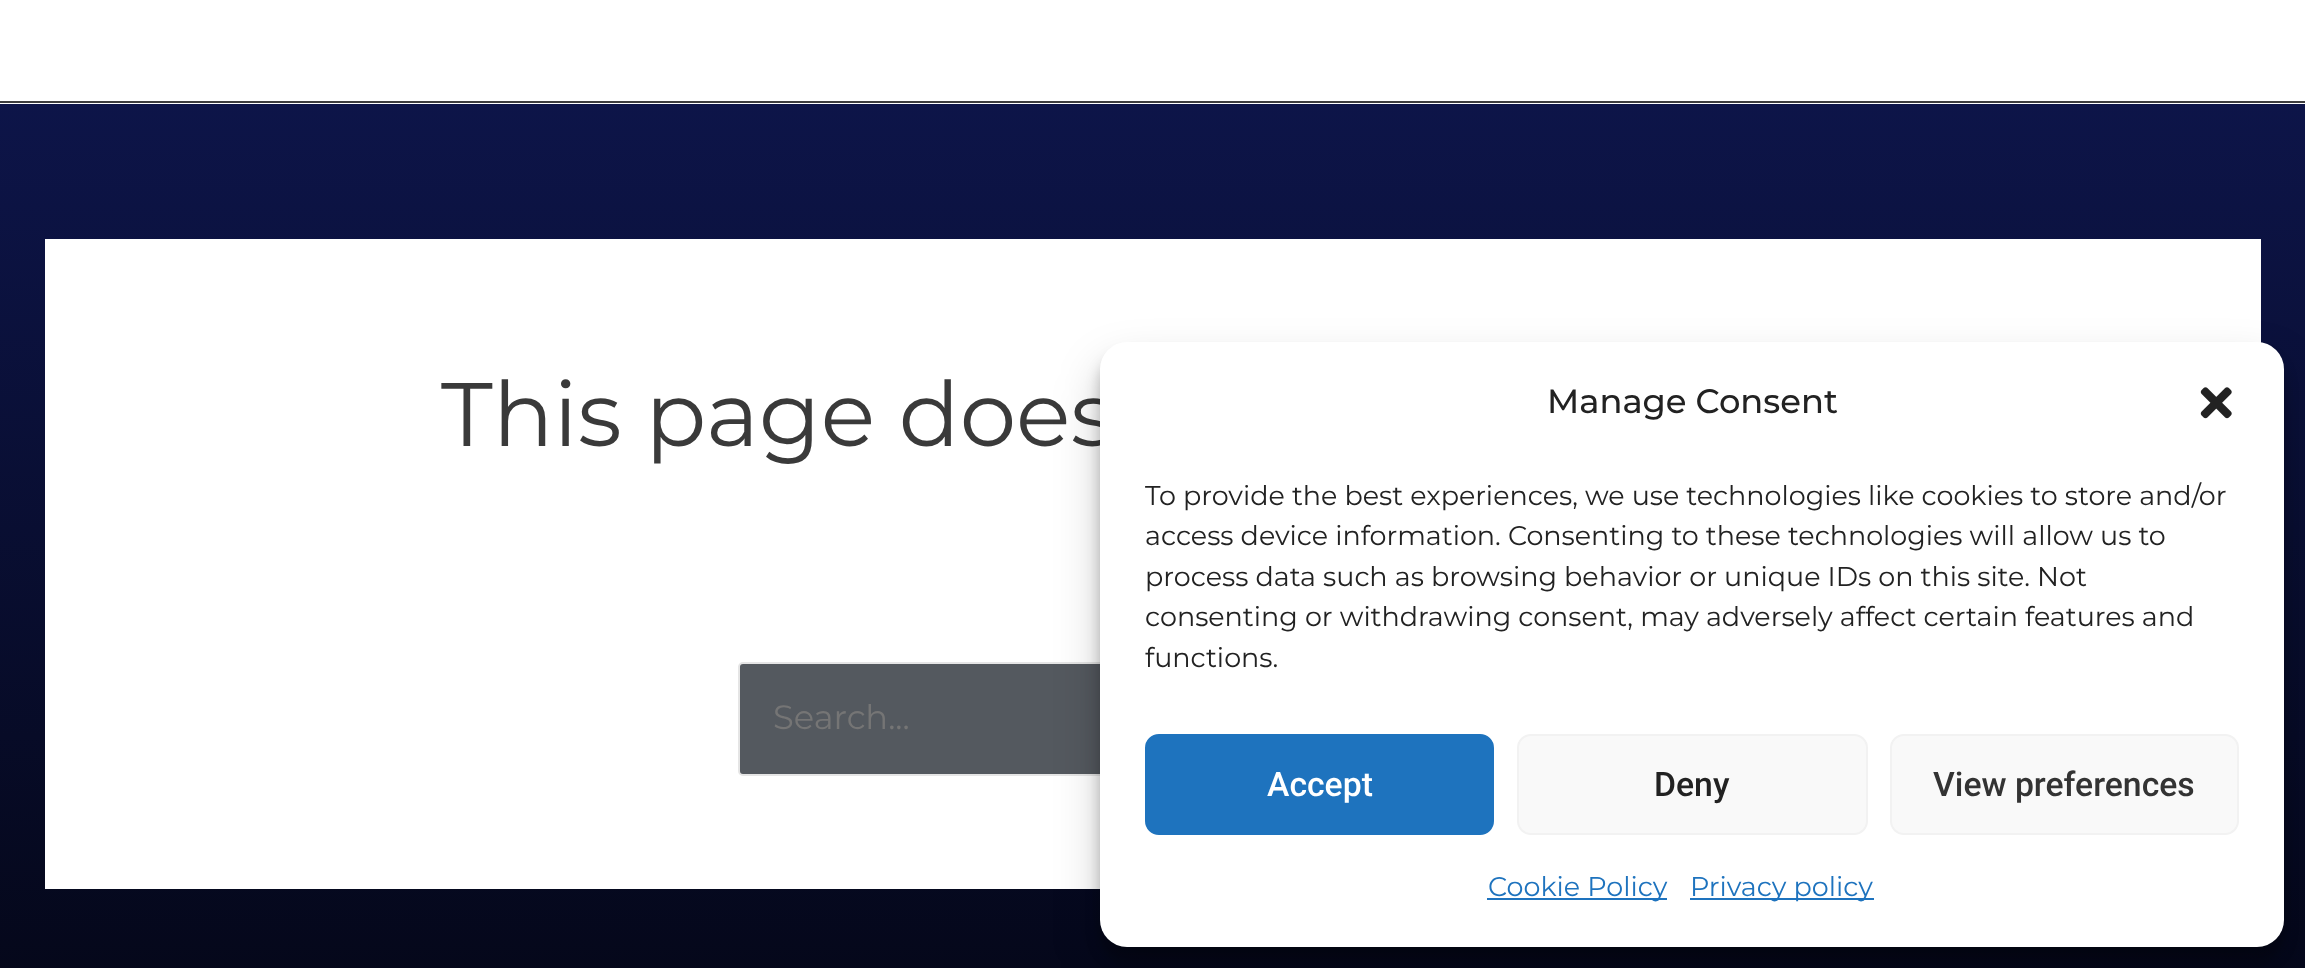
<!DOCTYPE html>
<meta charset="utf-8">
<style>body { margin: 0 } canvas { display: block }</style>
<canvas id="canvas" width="2305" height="968"></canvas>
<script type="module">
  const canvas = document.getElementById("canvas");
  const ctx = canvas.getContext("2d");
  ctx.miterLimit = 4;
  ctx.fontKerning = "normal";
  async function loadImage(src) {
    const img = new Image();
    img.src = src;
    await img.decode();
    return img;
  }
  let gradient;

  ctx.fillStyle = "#ffffff";
  ctx.fillRect(0, 0, 2305, 968);
  gradient = ctx.createLinearGradient(1153, 0, 1153, 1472);
  gradient.addColorStop(0, "#0e164e");
  gradient.addColorStop(1, "#000000");
  ctx.fillStyle = gradient;
  ctx.fillRect(0, 104, 2305, 864);
  ctx.fillStyle = "#3d3d3d";
  ctx.fillRect(0, 101, 2305, 2);
  ctx.fillStyle = "#ffffff";
  ctx.fillRect(45, 239, 2216, 650);
  ctx.font = "90px Montserrat";
  ctx.fillStyle = "#3a3a3a";
  ctx.fillText("This page does", 441, 446);
  ctx.fillStyle = "#54595f";
  ctx.beginPath();
  ctx.roundRect(739, 663, 831, 112, 4);
  ctx.fill();
  ctx.strokeStyle = "#e5e5e5";
  ctx.lineWidth = 2;
  ctx.stroke();
  ctx.font = "33.75px Montserrat";
  ctx.fillStyle = "#757575";
  ctx.fillText("Search...", 773, 729);
  ctx.fillStyle = "rgba(0, 0, 0, 0.23)";
  ctx.filter = "blur(7px)";
  ctx.beginPath();
  ctx.roundRect(1100, 356, 1184, 605, 27);
  ctx.fill();
  ctx.filter = "none";
  ctx.fillStyle = "rgba(0, 0, 0, 0.19)";
  ctx.filter = "blur(22.5px)";
  ctx.beginPath();
  ctx.roundRect(1100, 365, 1184, 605, 27);
  ctx.fill();
  ctx.filter = "none";
  ctx.fillStyle = "#ffffff";
  ctx.beginPath();
  ctx.roundRect(1100, 342, 1184, 605, 27);
  ctx.fill();
  ctx.font = "500 33.75px Montserrat";
  ctx.fillStyle = "#222222";
  ctx.fillText("Manage Consent", 1547, 413);
  ctx.drawImage(await loadImage("img1.png"), 2200, 387, 32, 32);
  ctx.font = "27px Montserrat";
  ctx.fillText("To provide the best experiences, we use technologies like cookies to store and/or", 1145, 505);
  ctx.fillText("access device information. Consenting to these technologies will allow us to", 1145, 545);
  ctx.fillText("process data such as browsing behavior or unique IDs on this site. Not", 1145, 586);
  ctx.fillText("consenting or withdrawing consent, may adversely affect certain features and", 1145, 626);
  ctx.fillText("functions.", 1145, 667);
  ctx.fillStyle = "#1e73be";
  ctx.beginPath();
  ctx.roundRect(1146, 735, 347, 99, 13);
  ctx.fill();
  ctx.strokeStyle = "#1e73be";
  ctx.stroke();
  ctx.font = "500 33.75px Roboto";
  ctx.fillStyle = "#ffffff";
  ctx.fillText("Accept", 1267, 796);
  ctx.fillStyle = "#f9f9f9";
  ctx.beginPath();
  ctx.roundRect(1518, 735, 349, 99, 13);
  ctx.fill();
  ctx.strokeStyle = "#f2f2f2";
  ctx.stroke();
  ctx.fillStyle = "#222222";
  ctx.fillText("Deny", 1654, 796);
  ctx.fillStyle = "#f9f9f9";
  ctx.beginPath();
  ctx.roundRect(1891, 735, 347, 99, 13);
  ctx.fill();
  ctx.stroke();
  ctx.fillStyle = "#333333";
  ctx.fillText("View preferences", 1933, 796);
  ctx.fillStyle = "#1e73be";
  ctx.fillRect(1487, 898, 180, 2);
  ctx.font = "27px Montserrat";
  ctx.fillText("Cookie Policy", 1488, 896);
  ctx.fillRect(1690, 898, 184, 2);
  ctx.fillText("Privacy policy", 1690, 896);
</script>
